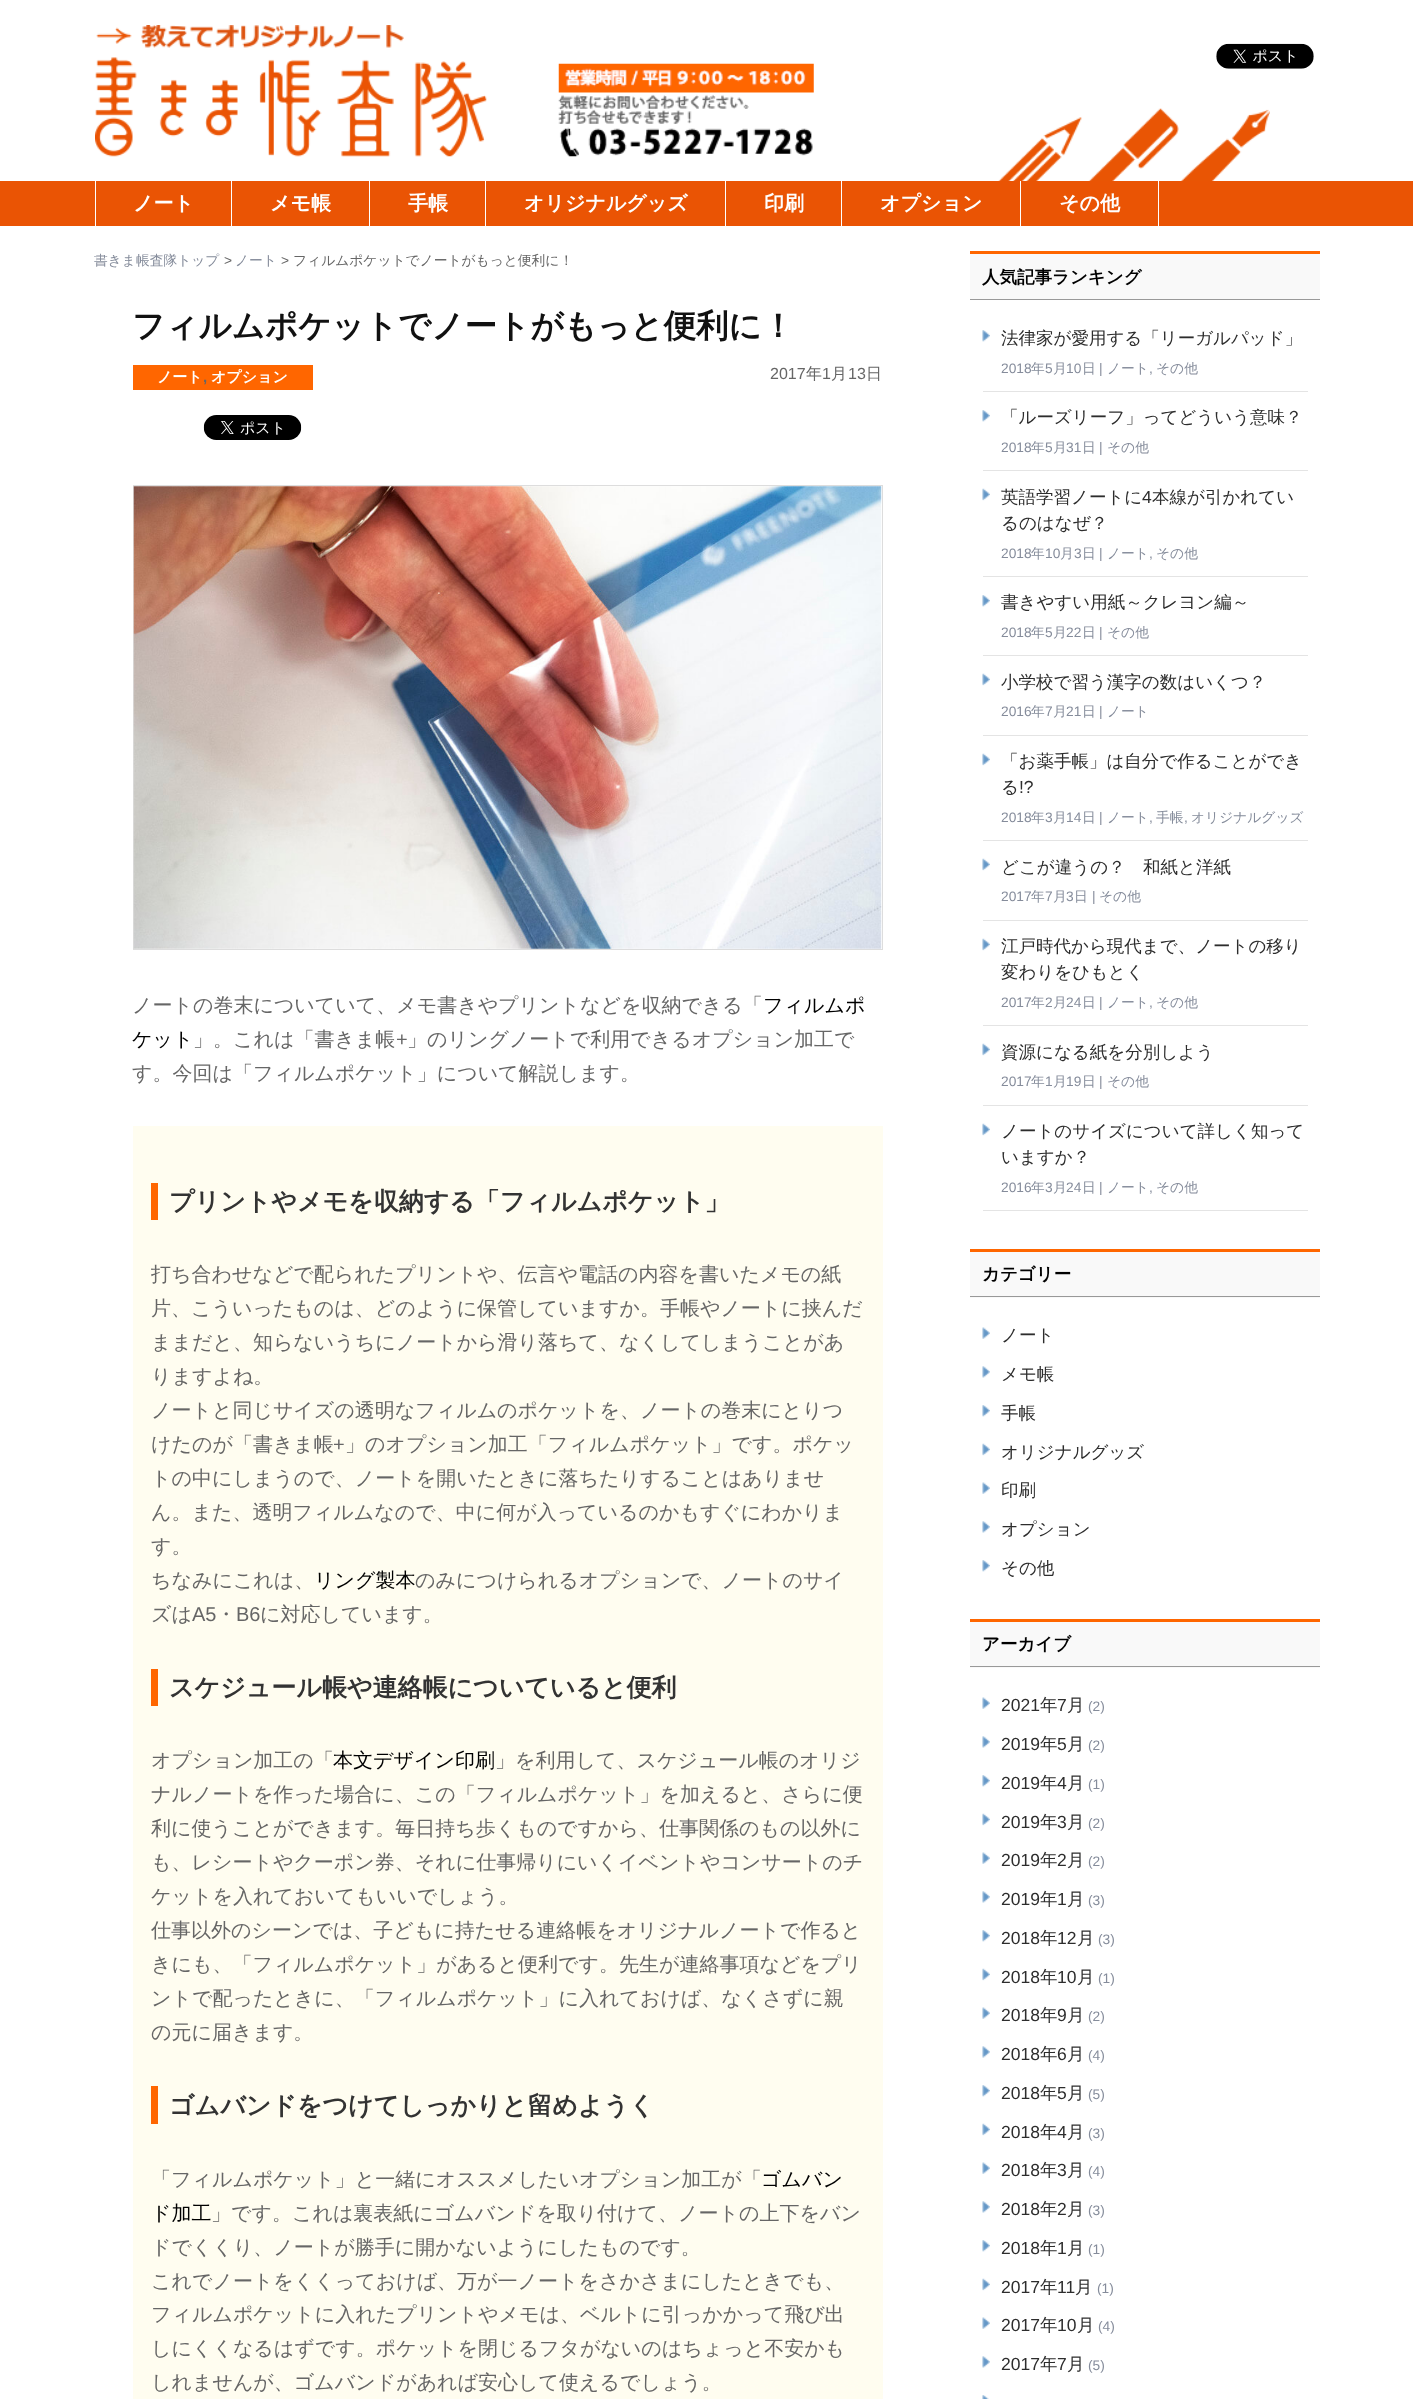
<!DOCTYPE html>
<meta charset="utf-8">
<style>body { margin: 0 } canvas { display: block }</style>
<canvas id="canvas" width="1413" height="2399"></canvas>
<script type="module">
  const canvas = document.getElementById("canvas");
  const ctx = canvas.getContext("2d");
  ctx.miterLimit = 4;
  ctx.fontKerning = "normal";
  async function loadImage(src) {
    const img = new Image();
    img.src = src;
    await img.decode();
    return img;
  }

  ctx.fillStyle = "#ffffff";
  ctx.fillRect(0, 0, 1413, 2399);
  ctx.drawImage(await loadImage("img1.png"), 998, 108, 272, 73);
  ctx.drawImage(await loadImage("img2.png"), 95, 25, 392, 132);
  ctx.drawImage(await loadImage("img3.png"), 558, 63, 256, 94);
  ctx.drawImage(await loadImage("img4.png"), 1216, 43, 98, 26);
  ctx.fillStyle = "#ea5404";
  ctx.fillRect(0, 181, 1413, 45);
  ctx.fillStyle = "#ffffff";
  ctx.fillRect(95, 181, 1, 45);
  ctx.font = "bold 20px WenQuanYi Zen Hei";
  ctx.fillText("ノート", 133, 210);
  ctx.fillRect(231, 181, 1, 45);
  ctx.fillText("メモ帳", 270, 210);
  ctx.fillRect(369, 181, 1, 45);
  ctx.fillText("手帳", 408, 210);
  ctx.fillRect(485, 181, 1, 45);
  ctx.fillText("オリジナルグッズ", 524, 210);
  ctx.fillRect(725, 181, 1, 45);
  ctx.fillText("印刷", 764, 210);
  ctx.fillRect(841, 181, 1, 45);
  ctx.fillText("オプション", 880, 210);
  ctx.fillRect(1158, 181, 1, 45);
  ctx.fillRect(1020, 181, 1, 45);
  ctx.fillText("その他", 1059, 210);
  ctx.font = "500 13.75px WenQuanYi Zen Hei";
  ctx.fillStyle = "#858c9b";
  ctx.fillText("書きま帳査隊トップ", 94, 265);
  ctx.font = "13.75px Liberation Sans";
  ctx.fillStyle = "#666666";
  ctx.fillText(">", 224, 265);
  ctx.font = "500 13.75px WenQuanYi Zen Hei";
  ctx.fillStyle = "#858c9b";
  ctx.fillText("ノート", 235, 265);
  ctx.font = "13.75px Liberation Sans";
  ctx.fillStyle = "#666666";
  ctx.fillText(">", 281, 265);
  ctx.font = "500 13.75px WenQuanYi Zen Hei";
  ctx.fillText("フィルムポケットでノートがもっと便利に！", 293, 265);
  ctx.font = "bold 32.5px WenQuanYi Zen Hei";
  ctx.fillStyle = "#111111";
  ctx.fillText("フィルムポケットでノートがもっと便利に！", 132, 337);
  ctx.fillStyle = "#ff6600";
  ctx.fillRect(133, 365, 180, 25);
  ctx.font = "bold 15px WenQuanYi Zen Hei";
  ctx.fillStyle = "#ffffff";
  ctx.fillText("ノート", 157, 382);
  ctx.font = "bold 15px Liberation Sans";
  ctx.fillStyle = "#666666";
  ctx.fillText(",", 203, 382);
  ctx.font = "bold 15px WenQuanYi Zen Hei";
  ctx.fillStyle = "#ffffff";
  ctx.fillText("オプション", 211, 382);
  ctx.font = "16px Liberation Sans";
  ctx.fillStyle = "#666666";
  ctx.fillText("2017", 770, 379);
  ctx.font = "500 16px WenQuanYi Zen Hei";
  ctx.fillText("年", 806, 379);
  ctx.font = "16px Liberation Sans";
  ctx.fillText("1", 822, 379);
  ctx.font = "500 16px WenQuanYi Zen Hei";
  ctx.fillText("月", 831, 379);
  ctx.font = "16px Liberation Sans";
  ctx.fillText("13", 848, 379);
  ctx.font = "500 16px WenQuanYi Zen Hei";
  ctx.fillText("日", 866, 379);
  ctx.drawImage(await loadImage("img5.png"), 203, 415, 99, 25);
  ctx.strokeStyle = "#dddddd";
  ctx.strokeRect(133.5, 485.5, 749, 464);
  ctx.drawImage(await loadImage("img6.png"), 133, 486, 749, 463);
  ctx.font = "500 20px WenQuanYi Zen Hei";
  ctx.fillText("ノートの巻末についていて、メモ書きやプリントなどを収納できる「", 132, 1012);
  ctx.fillStyle = "#000000";
  ctx.fillText("フィルムポ", 763, 1012);
  ctx.fillText("ケット", 132, 1046);
  ctx.fillStyle = "#666666";
  ctx.fillText("」。これは「書きま帳", 193, 1046);
  ctx.font = "20px Liberation Sans";
  ctx.fillText("+", 396, 1046);
  ctx.font = "500 20px WenQuanYi Zen Hei";
  ctx.fillText("」のリングノートで利用できるオプション加工で", 407, 1046);
  ctx.fillText("す。今回は「フィルムポケット」について解説します。", 132, 1080);
  ctx.fillStyle = "#fffdf0";
  ctx.fillRect(133, 1126, 750, 1273);
  ctx.fillStyle = "#ff6600";
  ctx.fillRect(151, 1183, 7, 37);
  ctx.font = "bold 25px WenQuanYi Zen Hei";
  ctx.fillStyle = "#333333";
  ctx.fillText("プリントやメモを収納する「フィルムポケット」", 169, 1210);
  ctx.font = "500 20px WenQuanYi Zen Hei";
  ctx.fillStyle = "#666666";
  ctx.fillText("打ち合わせなどで配られたプリントや、伝言や電話の内容を書いたメモの紙", 151, 1281);
  ctx.fillText("片、こういったものは、どのように保管していますか。手帳やノートに挟んだ", 151, 1315);
  ctx.fillText("ままだと、知らないうちにノートから滑り落ちて、なくしてしまうことがあ", 151, 1349);
  ctx.fillText("りますよね。", 151, 1383);
  ctx.fillText("ノートと同じサイズの透明なフィルムのポケットを、ノートの巻末にとりつ", 151, 1417);
  ctx.fillText("けたのが「書きま帳", 151, 1451);
  ctx.font = "20px Liberation Sans";
  ctx.fillText("+", 333, 1451);
  ctx.font = "500 20px WenQuanYi Zen Hei";
  ctx.fillText("」のオプション加工「フィルムポケット」です。ポケッ", 345, 1451);
  ctx.fillText("トの中にしまうので、ノートを開いたときに落ちたりすることはありませ", 151, 1485);
  ctx.fillText("ん。また、透明フィルムなので、中に何が入っているのかもすぐにわかりま", 151, 1519);
  ctx.fillText("す。", 151, 1553);
  ctx.fillText("ちなみにこれは、", 151, 1587);
  ctx.fillStyle = "#000000";
  ctx.fillText("リング製本", 314, 1587);
  ctx.fillStyle = "#666666";
  ctx.fillText("のみにつけられるオプションで、ノートのサイ", 415, 1587);
  ctx.fillText("ズは", 151, 1621);
  ctx.font = "20px Liberation Sans";
  ctx.fillText("A5", 192, 1621);
  ctx.font = "500 20px WenQuanYi Zen Hei";
  ctx.fillText("・", 216, 1621);
  ctx.font = "20px Liberation Sans";
  ctx.fillText("B6", 236, 1621);
  ctx.font = "500 20px WenQuanYi Zen Hei";
  ctx.fillText("に対応しています。", 260, 1621);
  ctx.fillStyle = "#ff6600";
  ctx.fillRect(151, 1669, 7, 37);
  ctx.font = "bold 25px WenQuanYi Zen Hei";
  ctx.fillStyle = "#333333";
  ctx.fillText("スケジュール帳や連絡帳についていると便利", 169, 1696);
  ctx.font = "500 20px WenQuanYi Zen Hei";
  ctx.fillStyle = "#666666";
  ctx.fillText("オプション加工の「", 151, 1767);
  ctx.fillStyle = "#000000";
  ctx.fillText("本文デザイン印刷", 333, 1767);
  ctx.fillStyle = "#666666";
  ctx.fillText("」を利用して、スケジュール帳のオリジ", 495, 1767);
  ctx.fillText("ナルノートを作った場合に、この「フィルムポケット」を加えると、さらに便", 151, 1801);
  ctx.fillText("利に使うことができます。毎日持ち歩くものですから、仕事関係のもの以外に", 151, 1835);
  ctx.fillText("も、レシートやクーポン券、それに仕事帰りにいくイベントやコンサートのチ", 151, 1869);
  ctx.fillText("ケットを入れておいてもいいでしょう。", 151, 1903);
  ctx.fillText("仕事以外のシーンでは、子どもに持たせる連絡帳をオリジナルノートで作ると", 151, 1937);
  ctx.fillText("きにも、「フィルムポケット」があると便利です。先生が連絡事項などをプリ", 151, 1971);
  ctx.fillText("ントで配ったときに、「フィルムポケット」に入れておけば、なくさずに親", 151, 2005);
  ctx.fillText("の元に届きます。", 151, 2039);
  ctx.fillStyle = "#ff6600";
  ctx.fillRect(151, 2086, 7, 38);
  ctx.font = "bold 25px WenQuanYi Zen Hei";
  ctx.fillStyle = "#333333";
  ctx.fillText("ゴムバンドをつけてしっかりと留めようく", 169, 2114);
  ctx.font = "500 20px WenQuanYi Zen Hei";
  ctx.fillStyle = "#666666";
  ctx.fillText("「フィルムポケット」と一緒にオススメしたいオプション加工が「", 151, 2186);
  ctx.fillStyle = "#000000";
  ctx.fillText("ゴムバン", 761, 2186);
  ctx.fillText("ド加工", 151, 2220);
  ctx.fillStyle = "#666666";
  ctx.fillText("」です。これは裏表紙にゴムバンドを取り付けて、ノートの上下をバン", 211, 2220);
  ctx.fillText("ドでくくり、ノートが勝手に開かないようにしたものです。", 151, 2254);
  ctx.fillText("これでノートをくくっておけば、万が一ノートをさかさまにしたときでも、", 151, 2288);
  ctx.fillText("フィルムポケットに入れたプリントやメモは、ベルトに引っかかって飛び出", 151, 2321);
  ctx.fillText("しにくくなるはずです。ポケットを閉じるフタがないのはちょっと不安かも", 151, 2355);
  ctx.fillText("しれませんが、ゴムバンドがあれば安心して使えるでしょう。", 151, 2389);
  ctx.fillStyle = "#f9f9f9";
  ctx.fillRect(970, 254, 350, 45);
  ctx.fillStyle = "#ff6600";
  ctx.fillRect(970, 251, 350, 3);
  ctx.fillStyle = "#999999";
  ctx.fillRect(970, 299, 350, 1);
  ctx.font = "bold 17.5px WenQuanYi Zen Hei";
  ctx.fillStyle = "#000000";
  ctx.fillText("人気記事ランキング", 982, 283);
  ctx.drawImage(await loadImage("img7.png"), 982, 330, 8, 12);
  ctx.fillStyle = "#e4e4e4";
  ctx.fillRect(983, 391, 325, 1);
  ctx.font = "500 17.5px WenQuanYi Zen Hei";
  ctx.fillStyle = "#2d2d2d";
  ctx.fillText("法律家が愛用する「リーガルパッド」", 1001, 344);
  ctx.font = "13.75px Liberation Sans";
  ctx.fillStyle = "#858c9b";
  ctx.fillText("2018", 1001, 373);
  ctx.font = "500 13.75px WenQuanYi Zen Hei";
  ctx.fillText("年", 1031, 373);
  ctx.font = "13.75px Liberation Sans";
  ctx.fillText("5", 1045, 373);
  ctx.font = "500 13.75px WenQuanYi Zen Hei";
  ctx.fillText("月", 1053, 373);
  ctx.font = "13.75px Liberation Sans";
  ctx.fillText("10", 1066, 373);
  ctx.font = "500 13.75px WenQuanYi Zen Hei";
  ctx.fillText("日", 1082, 373);
  ctx.font = "13.75px Liberation Sans";
  ctx.fillText("|", 1099, 373);
  ctx.font = "500 13.75px WenQuanYi Zen Hei";
  ctx.fillText("ノート", 1107, 373);
  ctx.font = "13.75px Liberation Sans";
  ctx.fillText(",", 1149, 373);
  ctx.font = "500 13.75px WenQuanYi Zen Hei";
  ctx.fillText("その他", 1156, 373);
  ctx.drawImage(await loadImage("img7.png"), 982, 410, 8, 12);
  ctx.fillStyle = "#e4e4e4";
  ctx.fillRect(983, 470, 325, 1);
  ctx.font = "500 17.5px WenQuanYi Zen Hei";
  ctx.fillStyle = "#2d2d2d";
  ctx.fillText("「ルーズリーフ」ってどういう意味？", 1001, 423);
  ctx.font = "13.75px Liberation Sans";
  ctx.fillStyle = "#858c9b";
  ctx.fillText("2018", 1001, 452);
  ctx.font = "500 13.75px WenQuanYi Zen Hei";
  ctx.fillText("年", 1031, 452);
  ctx.font = "13.75px Liberation Sans";
  ctx.fillText("5", 1045, 452);
  ctx.font = "500 13.75px WenQuanYi Zen Hei";
  ctx.fillText("月", 1053, 452);
  ctx.font = "13.75px Liberation Sans";
  ctx.fillText("31", 1066, 452);
  ctx.font = "500 13.75px WenQuanYi Zen Hei";
  ctx.fillText("日", 1082, 452);
  ctx.font = "13.75px Liberation Sans";
  ctx.fillText("|", 1099, 452);
  ctx.font = "500 13.75px WenQuanYi Zen Hei";
  ctx.fillText("その他", 1107, 452);
  ctx.drawImage(await loadImage("img8.png"), 982, 488, 8, 13);
  ctx.fillStyle = "#e4e4e4";
  ctx.fillRect(983, 576, 325, 1);
  ctx.font = "500 17.5px WenQuanYi Zen Hei";
  ctx.fillStyle = "#2d2d2d";
  ctx.fillText("英語学習ノートに", 1001, 503);
  ctx.font = "17.5px Liberation Sans";
  ctx.fillText("4", 1142, 503);
  ctx.font = "500 17.5px WenQuanYi Zen Hei";
  ctx.fillText("本線が引かれてい", 1152, 503);
  ctx.fillText("るのはなぜ？", 1001, 529);
  ctx.font = "13.75px Liberation Sans";
  ctx.fillStyle = "#858c9b";
  ctx.fillText("2018", 1001, 558);
  ctx.font = "500 13.75px WenQuanYi Zen Hei";
  ctx.fillText("年", 1031, 558);
  ctx.font = "13.75px Liberation Sans";
  ctx.fillText("10", 1045, 558);
  ctx.font = "500 13.75px WenQuanYi Zen Hei";
  ctx.fillText("月", 1060, 558);
  ctx.font = "13.75px Liberation Sans";
  ctx.fillText("3", 1074, 558);
  ctx.font = "500 13.75px WenQuanYi Zen Hei";
  ctx.fillText("日", 1082, 558);
  ctx.font = "13.75px Liberation Sans";
  ctx.fillText("|", 1099, 558);
  ctx.font = "500 13.75px WenQuanYi Zen Hei";
  ctx.fillText("ノート", 1107, 558);
  ctx.font = "13.75px Liberation Sans";
  ctx.fillText(",", 1149, 558);
  ctx.font = "500 13.75px WenQuanYi Zen Hei";
  ctx.fillText("その他", 1156, 558);
  ctx.drawImage(await loadImage("img7.png"), 982, 595, 8, 12);
  ctx.fillStyle = "#e4e4e4";
  ctx.fillRect(983, 655, 325, 1);
  ctx.font = "500 17.5px WenQuanYi Zen Hei";
  ctx.fillStyle = "#2d2d2d";
  ctx.fillText("書きやすい用紙～クレヨン編～", 1001, 608);
  ctx.font = "13.75px Liberation Sans";
  ctx.fillStyle = "#858c9b";
  ctx.fillText("2018", 1001, 637);
  ctx.font = "500 13.75px WenQuanYi Zen Hei";
  ctx.fillText("年", 1031, 637);
  ctx.font = "13.75px Liberation Sans";
  ctx.fillText("5", 1045, 637);
  ctx.font = "500 13.75px WenQuanYi Zen Hei";
  ctx.fillText("月", 1053, 637);
  ctx.font = "13.75px Liberation Sans";
  ctx.fillText("22", 1066, 637);
  ctx.font = "500 13.75px WenQuanYi Zen Hei";
  ctx.fillText("日", 1082, 637);
  ctx.font = "13.75px Liberation Sans";
  ctx.fillText("|", 1099, 637);
  ctx.font = "500 13.75px WenQuanYi Zen Hei";
  ctx.fillText("その他", 1107, 637);
  ctx.drawImage(await loadImage("img8.png"), 982, 673, 8, 13);
  ctx.fillStyle = "#e4e4e4";
  ctx.fillRect(983, 735, 325, 1);
  ctx.font = "500 17.5px WenQuanYi Zen Hei";
  ctx.fillStyle = "#2d2d2d";
  ctx.fillText("小学校で習う漢字の数はいくつ？", 1001, 688);
  ctx.font = "13.75px Liberation Sans";
  ctx.fillStyle = "#858c9b";
  ctx.fillText("2016", 1001, 716);
  ctx.font = "500 13.75px WenQuanYi Zen Hei";
  ctx.fillText("年", 1031, 716);
  ctx.font = "13.75px Liberation Sans";
  ctx.fillText("7", 1045, 716);
  ctx.font = "500 13.75px WenQuanYi Zen Hei";
  ctx.fillText("月", 1053, 716);
  ctx.font = "13.75px Liberation Sans";
  ctx.fillText("21", 1066, 716);
  ctx.font = "500 13.75px WenQuanYi Zen Hei";
  ctx.fillText("日", 1082, 716);
  ctx.font = "13.75px Liberation Sans";
  ctx.fillText("|", 1099, 716);
  ctx.font = "500 13.75px WenQuanYi Zen Hei";
  ctx.fillText("ノート", 1107, 716);
  ctx.drawImage(await loadImage("img8.png"), 982, 753, 8, 13);
  ctx.fillStyle = "#e4e4e4";
  ctx.fillRect(983, 840, 325, 1);
  ctx.font = "500 17.5px WenQuanYi Zen Hei";
  ctx.fillStyle = "#2d2d2d";
  ctx.fillText("「お薬手帳」は自分で作ることができ", 1001, 767);
  ctx.fillText("る", 1001, 793);
  ctx.font = "17.5px Liberation Sans";
  ctx.fillText("!?", 1019, 793);
  ctx.font = "13.75px Liberation Sans";
  ctx.fillStyle = "#858c9b";
  ctx.fillText("2018", 1001, 822);
  ctx.font = "500 13.75px WenQuanYi Zen Hei";
  ctx.fillText("年", 1031, 822);
  ctx.font = "13.75px Liberation Sans";
  ctx.fillText("3", 1045, 822);
  ctx.font = "500 13.75px WenQuanYi Zen Hei";
  ctx.fillText("月", 1053, 822);
  ctx.font = "13.75px Liberation Sans";
  ctx.fillText("14", 1066, 822);
  ctx.font = "500 13.75px WenQuanYi Zen Hei";
  ctx.fillText("日", 1082, 822);
  ctx.font = "13.75px Liberation Sans";
  ctx.fillText("|", 1099, 822);
  ctx.font = "500 13.75px WenQuanYi Zen Hei";
  ctx.fillText("ノート", 1107, 822);
  ctx.font = "13.75px Liberation Sans";
  ctx.fillText(",", 1149, 822);
  ctx.font = "500 13.75px WenQuanYi Zen Hei";
  ctx.fillText("手帳", 1156, 822);
  ctx.font = "13.75px Liberation Sans";
  ctx.fillText(",", 1184, 822);
  ctx.font = "500 13.75px WenQuanYi Zen Hei";
  ctx.fillText("オリジナルグッズ", 1191, 822);
  ctx.drawImage(await loadImage("img8.png"), 982, 858, 8, 13);
  ctx.fillStyle = "#e4e4e4";
  ctx.fillRect(983, 920, 325, 1);
  ctx.font = "500 17.5px WenQuanYi Zen Hei";
  ctx.fillStyle = "#2d2d2d";
  ctx.fillText("どこが違うの？　和紙と洋紙", 1001, 873);
  ctx.font = "13.75px Liberation Sans";
  ctx.fillStyle = "#858c9b";
  ctx.fillText("2017", 1001, 901);
  ctx.font = "500 13.75px WenQuanYi Zen Hei";
  ctx.fillText("年", 1031, 901);
  ctx.font = "13.75px Liberation Sans";
  ctx.fillText("7", 1045, 901);
  ctx.font = "500 13.75px WenQuanYi Zen Hei";
  ctx.fillText("月", 1053, 901);
  ctx.font = "13.75px Liberation Sans";
  ctx.fillText("3", 1066, 901);
  ctx.font = "500 13.75px WenQuanYi Zen Hei";
  ctx.fillText("日", 1074, 901);
  ctx.font = "13.75px Liberation Sans";
  ctx.fillText("|", 1092, 901);
  ctx.font = "500 13.75px WenQuanYi Zen Hei";
  ctx.fillText("その他", 1099, 901);
  ctx.drawImage(await loadImage("img8.png"), 982, 938, 8, 13);
  ctx.fillStyle = "#e4e4e4";
  ctx.fillRect(983, 1025, 325, 1);
  ctx.font = "500 17.5px WenQuanYi Zen Hei";
  ctx.fillStyle = "#2d2d2d";
  ctx.fillText("江戸時代から現代まで、ノートの移り", 1001, 952);
  ctx.fillText("変わりをひもとく", 1001, 978);
  ctx.font = "13.75px Liberation Sans";
  ctx.fillStyle = "#858c9b";
  ctx.fillText("2017", 1001, 1007);
  ctx.font = "500 13.75px WenQuanYi Zen Hei";
  ctx.fillText("年", 1031, 1007);
  ctx.font = "13.75px Liberation Sans";
  ctx.fillText("2", 1045, 1007);
  ctx.font = "500 13.75px WenQuanYi Zen Hei";
  ctx.fillText("月", 1053, 1007);
  ctx.font = "13.75px Liberation Sans";
  ctx.fillText("24", 1066, 1007);
  ctx.font = "500 13.75px WenQuanYi Zen Hei";
  ctx.fillText("日", 1082, 1007);
  ctx.font = "13.75px Liberation Sans";
  ctx.fillText("|", 1099, 1007);
  ctx.font = "500 13.75px WenQuanYi Zen Hei";
  ctx.fillText("ノート", 1107, 1007);
  ctx.font = "13.75px Liberation Sans";
  ctx.fillText(",", 1149, 1007);
  ctx.font = "500 13.75px WenQuanYi Zen Hei";
  ctx.fillText("その他", 1156, 1007);
  ctx.drawImage(await loadImage("img8.png"), 982, 1043, 8, 13);
  ctx.fillStyle = "#e4e4e4";
  ctx.fillRect(983, 1105, 325, 1);
  ctx.font = "500 17.5px WenQuanYi Zen Hei";
  ctx.fillStyle = "#2d2d2d";
  ctx.fillText("資源になる紙を分別しよう", 1001, 1058);
  ctx.font = "13.75px Liberation Sans";
  ctx.fillStyle = "#858c9b";
  ctx.fillText("2017", 1001, 1086);
  ctx.font = "500 13.75px WenQuanYi Zen Hei";
  ctx.fillText("年", 1031, 1086);
  ctx.font = "13.75px Liberation Sans";
  ctx.fillText("1", 1045, 1086);
  ctx.font = "500 13.75px WenQuanYi Zen Hei";
  ctx.fillText("月", 1053, 1086);
  ctx.font = "13.75px Liberation Sans";
  ctx.fillText("19", 1066, 1086);
  ctx.font = "500 13.75px WenQuanYi Zen Hei";
  ctx.fillText("日", 1082, 1086);
  ctx.font = "13.75px Liberation Sans";
  ctx.fillText("|", 1099, 1086);
  ctx.font = "500 13.75px WenQuanYi Zen Hei";
  ctx.fillText("その他", 1107, 1086);
  ctx.drawImage(await loadImage("img8.png"), 982, 1123, 8, 13);
  ctx.fillStyle = "#e4e4e4";
  ctx.fillRect(983, 1210, 325, 1);
  ctx.font = "500 17.5px WenQuanYi Zen Hei";
  ctx.fillStyle = "#2d2d2d";
  ctx.fillText("ノートのサイズについて詳しく知って", 1001, 1137);
  ctx.fillText("いますか？", 1001, 1163);
  ctx.font = "13.75px Liberation Sans";
  ctx.fillStyle = "#858c9b";
  ctx.fillText("2016", 1001, 1192);
  ctx.font = "500 13.75px WenQuanYi Zen Hei";
  ctx.fillText("年", 1031, 1192);
  ctx.font = "13.75px Liberation Sans";
  ctx.fillText("3", 1045, 1192);
  ctx.font = "500 13.75px WenQuanYi Zen Hei";
  ctx.fillText("月", 1053, 1192);
  ctx.font = "13.75px Liberation Sans";
  ctx.fillText("24", 1066, 1192);
  ctx.font = "500 13.75px WenQuanYi Zen Hei";
  ctx.fillText("日", 1082, 1192);
  ctx.font = "13.75px Liberation Sans";
  ctx.fillText("|", 1099, 1192);
  ctx.font = "500 13.75px WenQuanYi Zen Hei";
  ctx.fillText("ノート", 1107, 1192);
  ctx.font = "13.75px Liberation Sans";
  ctx.fillText(",", 1149, 1192);
  ctx.font = "500 13.75px WenQuanYi Zen Hei";
  ctx.fillText("その他", 1156, 1192);
  ctx.fillStyle = "#f9f9f9";
  ctx.fillRect(970, 1252, 350, 46);
  ctx.fillStyle = "#ff6600";
  ctx.fillRect(970, 1249, 350, 3);
  ctx.fillStyle = "#999999";
  ctx.fillRect(970, 1296, 350, 1);
  ctx.font = "bold 17.5px WenQuanYi Zen Hei";
  ctx.fillStyle = "#000000";
  ctx.fillText("カテゴリー", 982, 1280);
  ctx.drawImage(await loadImage("img9.png"), 982, 1327, 8, 12);
  ctx.font = "500 17.5px WenQuanYi Zen Hei";
  ctx.fillStyle = "#2d2d2d";
  ctx.fillText("ノート", 1001, 1341);
  ctx.drawImage(await loadImage("img10.png"), 982, 1366, 8, 12);
  ctx.fillText("メモ帳", 1001, 1380);
  ctx.drawImage(await loadImage("img7.png"), 982, 1405, 8, 12);
  ctx.fillText("手帳", 1001, 1419);
  ctx.drawImage(await loadImage("img8.png"), 982, 1443, 8, 13);
  ctx.fillText("オリジナルグッズ", 1001, 1458);
  ctx.drawImage(await loadImage("img9.png"), 982, 1482, 8, 12);
  ctx.fillText("印刷", 1001, 1496);
  ctx.drawImage(await loadImage("img10.png"), 982, 1521, 8, 12);
  ctx.fillText("オプション", 1001, 1535);
  ctx.drawImage(await loadImage("img11.png"), 982, 1560, 8, 12);
  ctx.fillText("その他", 1001, 1574);
  ctx.fillStyle = "#f9f9f9";
  ctx.fillRect(970, 1622, 350, 46);
  ctx.fillStyle = "#ff6600";
  ctx.fillRect(970, 1619, 350, 3);
  ctx.fillStyle = "#999999";
  ctx.fillRect(970, 1666, 350, 1);
  ctx.font = "bold 17.5px WenQuanYi Zen Hei";
  ctx.fillStyle = "#000000";
  ctx.fillText("アーカイブ", 982, 1650);
  ctx.drawImage(await loadImage("img9.png"), 982, 1697, 8, 12);
  ctx.font = "17.5px Liberation Sans";
  ctx.fillStyle = "#2d2d2d";
  ctx.fillText("2021", 1001, 1711);
  ctx.font = "500 17.5px WenQuanYi Zen Hei";
  ctx.fillText("年", 1040, 1711);
  ctx.font = "17.5px Liberation Sans";
  ctx.fillText("7", 1057, 1711);
  ctx.font = "500 17.5px WenQuanYi Zen Hei";
  ctx.fillText("月", 1067, 1711);
  ctx.font = "13.75px Liberation Sans";
  ctx.fillStyle = "#858c9b";
  ctx.fillText("(2)", 1088, 1711);
  ctx.drawImage(await loadImage("img10.png"), 982, 1736, 8, 12);
  ctx.font = "17.5px Liberation Sans";
  ctx.fillStyle = "#2d2d2d";
  ctx.fillText("2019", 1001, 1750);
  ctx.font = "500 17.5px WenQuanYi Zen Hei";
  ctx.fillText("年", 1040, 1750);
  ctx.font = "17.5px Liberation Sans";
  ctx.fillText("5", 1057, 1750);
  ctx.font = "500 17.5px WenQuanYi Zen Hei";
  ctx.fillText("月", 1067, 1750);
  ctx.font = "13.75px Liberation Sans";
  ctx.fillStyle = "#858c9b";
  ctx.fillText("(2)", 1088, 1750);
  ctx.drawImage(await loadImage("img7.png"), 982, 1775, 8, 12);
  ctx.font = "17.5px Liberation Sans";
  ctx.fillStyle = "#2d2d2d";
  ctx.fillText("2019", 1001, 1789);
  ctx.font = "500 17.5px WenQuanYi Zen Hei";
  ctx.fillText("年", 1040, 1789);
  ctx.font = "17.5px Liberation Sans";
  ctx.fillText("4", 1057, 1789);
  ctx.font = "500 17.5px WenQuanYi Zen Hei";
  ctx.fillText("月", 1067, 1789);
  ctx.font = "13.75px Liberation Sans";
  ctx.fillStyle = "#858c9b";
  ctx.fillText("(1)", 1088, 1789);
  ctx.drawImage(await loadImage("img8.png"), 982, 1813, 8, 13);
  ctx.font = "17.5px Liberation Sans";
  ctx.fillStyle = "#2d2d2d";
  ctx.fillText("2019", 1001, 1828);
  ctx.font = "500 17.5px WenQuanYi Zen Hei";
  ctx.fillText("年", 1040, 1828);
  ctx.font = "17.5px Liberation Sans";
  ctx.fillText("3", 1057, 1828);
  ctx.font = "500 17.5px WenQuanYi Zen Hei";
  ctx.fillText("月", 1067, 1828);
  ctx.font = "13.75px Liberation Sans";
  ctx.fillStyle = "#858c9b";
  ctx.fillText("(2)", 1088, 1828);
  ctx.drawImage(await loadImage("img12.png"), 982, 1852, 8, 12);
  ctx.font = "17.5px Liberation Sans";
  ctx.fillStyle = "#2d2d2d";
  ctx.fillText("2019", 1001, 1866);
  ctx.font = "500 17.5px WenQuanYi Zen Hei";
  ctx.fillText("年", 1040, 1866);
  ctx.font = "17.5px Liberation Sans";
  ctx.fillText("2", 1057, 1866);
  ctx.font = "500 17.5px WenQuanYi Zen Hei";
  ctx.fillText("月", 1067, 1866);
  ctx.font = "13.75px Liberation Sans";
  ctx.fillStyle = "#858c9b";
  ctx.fillText("(2)", 1088, 1866);
  ctx.drawImage(await loadImage("img10.png"), 982, 1891, 8, 12);
  ctx.font = "17.5px Liberation Sans";
  ctx.fillStyle = "#2d2d2d";
  ctx.fillText("2019", 1001, 1905);
  ctx.font = "500 17.5px WenQuanYi Zen Hei";
  ctx.fillText("年", 1040, 1905);
  ctx.font = "17.5px Liberation Sans";
  ctx.fillText("1", 1057, 1905);
  ctx.font = "500 17.5px WenQuanYi Zen Hei";
  ctx.fillText("月", 1067, 1905);
  ctx.font = "13.75px Liberation Sans";
  ctx.fillStyle = "#858c9b";
  ctx.fillText("(3)", 1088, 1905);
  ctx.drawImage(await loadImage("img7.png"), 982, 1930, 8, 12);
  ctx.font = "17.5px Liberation Sans";
  ctx.fillStyle = "#2d2d2d";
  ctx.fillText("2018", 1001, 1944);
  ctx.font = "500 17.5px WenQuanYi Zen Hei";
  ctx.fillText("年", 1040, 1944);
  ctx.font = "17.5px Liberation Sans";
  ctx.fillText("12", 1057, 1944);
  ctx.font = "500 17.5px WenQuanYi Zen Hei";
  ctx.fillText("月", 1077, 1944);
  ctx.font = "13.75px Liberation Sans";
  ctx.fillStyle = "#858c9b";
  ctx.fillText("(3)", 1098, 1944);
  ctx.drawImage(await loadImage("img8.png"), 982, 1968, 8, 13);
  ctx.font = "17.5px Liberation Sans";
  ctx.fillStyle = "#2d2d2d";
  ctx.fillText("2018", 1001, 1983);
  ctx.font = "500 17.5px WenQuanYi Zen Hei";
  ctx.fillText("年", 1040, 1983);
  ctx.font = "17.5px Liberation Sans";
  ctx.fillText("10", 1057, 1983);
  ctx.font = "500 17.5px WenQuanYi Zen Hei";
  ctx.fillText("月", 1077, 1983);
  ctx.font = "13.75px Liberation Sans";
  ctx.fillStyle = "#858c9b";
  ctx.fillText("(1)", 1098, 1983);
  ctx.drawImage(await loadImage("img9.png"), 982, 2007, 8, 12);
  ctx.font = "17.5px Liberation Sans";
  ctx.fillStyle = "#2d2d2d";
  ctx.fillText("2018", 1001, 2021);
  ctx.font = "500 17.5px WenQuanYi Zen Hei";
  ctx.fillText("年", 1040, 2021);
  ctx.font = "17.5px Liberation Sans";
  ctx.fillText("9", 1057, 2021);
  ctx.font = "500 17.5px WenQuanYi Zen Hei";
  ctx.fillText("月", 1067, 2021);
  ctx.font = "13.75px Liberation Sans";
  ctx.fillStyle = "#858c9b";
  ctx.fillText("(2)", 1088, 2021);
  ctx.drawImage(await loadImage("img13.png"), 982, 2046, 8, 12);
  ctx.font = "17.5px Liberation Sans";
  ctx.fillStyle = "#2d2d2d";
  ctx.fillText("2018", 1001, 2060);
  ctx.font = "500 17.5px WenQuanYi Zen Hei";
  ctx.fillText("年", 1040, 2060);
  ctx.font = "17.5px Liberation Sans";
  ctx.fillText("6", 1057, 2060);
  ctx.font = "500 17.5px WenQuanYi Zen Hei";
  ctx.fillText("月", 1067, 2060);
  ctx.font = "13.75px Liberation Sans";
  ctx.fillStyle = "#858c9b";
  ctx.fillText("(4)", 1088, 2060);
  ctx.drawImage(await loadImage("img7.png"), 982, 2085, 8, 12);
  ctx.font = "17.5px Liberation Sans";
  ctx.fillStyle = "#2d2d2d";
  ctx.fillText("2018", 1001, 2099);
  ctx.font = "500 17.5px WenQuanYi Zen Hei";
  ctx.fillText("年", 1040, 2099);
  ctx.font = "17.5px Liberation Sans";
  ctx.fillText("5", 1057, 2099);
  ctx.font = "500 17.5px WenQuanYi Zen Hei";
  ctx.fillText("月", 1067, 2099);
  ctx.font = "13.75px Liberation Sans";
  ctx.fillStyle = "#858c9b";
  ctx.fillText("(5)", 1088, 2099);
  ctx.drawImage(await loadImage("img8.png"), 982, 2123, 8, 13);
  ctx.font = "17.5px Liberation Sans";
  ctx.fillStyle = "#2d2d2d";
  ctx.fillText("2018", 1001, 2138);
  ctx.font = "500 17.5px WenQuanYi Zen Hei";
  ctx.fillText("年", 1040, 2138);
  ctx.font = "17.5px Liberation Sans";
  ctx.fillText("4", 1057, 2138);
  ctx.font = "500 17.5px WenQuanYi Zen Hei";
  ctx.fillText("月", 1067, 2138);
  ctx.font = "13.75px Liberation Sans";
  ctx.fillStyle = "#858c9b";
  ctx.fillText("(3)", 1088, 2138);
  ctx.drawImage(await loadImage("img9.png"), 982, 2162, 8, 12);
  ctx.font = "17.5px Liberation Sans";
  ctx.fillStyle = "#2d2d2d";
  ctx.fillText("2018", 1001, 2176);
  ctx.font = "500 17.5px WenQuanYi Zen Hei";
  ctx.fillText("年", 1040, 2176);
  ctx.font = "17.5px Liberation Sans";
  ctx.fillText("3", 1057, 2176);
  ctx.font = "500 17.5px WenQuanYi Zen Hei";
  ctx.fillText("月", 1067, 2176);
  ctx.font = "13.75px Liberation Sans";
  ctx.fillStyle = "#858c9b";
  ctx.fillText("(4)", 1088, 2176);
  ctx.drawImage(await loadImage("img10.png"), 982, 2201, 8, 12);
  ctx.font = "17.5px Liberation Sans";
  ctx.fillStyle = "#2d2d2d";
  ctx.fillText("2018", 1001, 2215);
  ctx.font = "500 17.5px WenQuanYi Zen Hei";
  ctx.fillText("年", 1040, 2215);
  ctx.font = "17.5px Liberation Sans";
  ctx.fillText("2", 1057, 2215);
  ctx.font = "500 17.5px WenQuanYi Zen Hei";
  ctx.fillText("月", 1067, 2215);
  ctx.font = "13.75px Liberation Sans";
  ctx.fillStyle = "#858c9b";
  ctx.fillText("(3)", 1088, 2215);
  ctx.drawImage(await loadImage("img7.png"), 982, 2240, 8, 12);
  ctx.font = "17.5px Liberation Sans";
  ctx.fillStyle = "#2d2d2d";
  ctx.fillText("2018", 1001, 2254);
  ctx.font = "500 17.5px WenQuanYi Zen Hei";
  ctx.fillText("年", 1040, 2254);
  ctx.font = "17.5px Liberation Sans";
  ctx.fillText("1", 1057, 2254);
  ctx.font = "500 17.5px WenQuanYi Zen Hei";
  ctx.fillText("月", 1067, 2254);
  ctx.font = "13.75px Liberation Sans";
  ctx.fillStyle = "#858c9b";
  ctx.fillText("(1)", 1088, 2254);
  ctx.drawImage(await loadImage("img8.png"), 982, 2278, 8, 13);
  ctx.font = "17.5px Liberation Sans";
  ctx.fillStyle = "#2d2d2d";
  ctx.fillText("2017", 1001, 2293);
  ctx.font = "500 17.5px WenQuanYi Zen Hei";
  ctx.fillText("年", 1040, 2293);
  ctx.font = "17.5px Liberation Sans";
  ctx.fillText("11", 1057, 2293);
  ctx.font = "500 17.5px WenQuanYi Zen Hei";
  ctx.fillText("月", 1075, 2293);
  ctx.font = "13.75px Liberation Sans";
  ctx.fillStyle = "#858c9b";
  ctx.fillText("(1)", 1097, 2293);
  ctx.drawImage(await loadImage("img9.png"), 982, 2317, 8, 12);
  ctx.font = "17.5px Liberation Sans";
  ctx.fillStyle = "#2d2d2d";
  ctx.fillText("2017", 1001, 2331);
  ctx.font = "500 17.5px WenQuanYi Zen Hei";
  ctx.fillText("年", 1040, 2331);
  ctx.font = "17.5px Liberation Sans";
  ctx.fillText("10", 1057, 2331);
  ctx.font = "500 17.5px WenQuanYi Zen Hei";
  ctx.fillText("月", 1077, 2331);
  ctx.font = "13.75px Liberation Sans";
  ctx.fillStyle = "#858c9b";
  ctx.fillText("(4)", 1098, 2331);
  ctx.drawImage(await loadImage("img10.png"), 982, 2356, 8, 12);
  ctx.font = "17.5px Liberation Sans";
  ctx.fillStyle = "#2d2d2d";
  ctx.fillText("2017", 1001, 2370);
  ctx.font = "500 17.5px WenQuanYi Zen Hei";
  ctx.fillText("年", 1040, 2370);
  ctx.font = "17.5px Liberation Sans";
  ctx.fillText("7", 1057, 2370);
  ctx.font = "500 17.5px WenQuanYi Zen Hei";
  ctx.fillText("月", 1067, 2370);
  ctx.font = "13.75px Liberation Sans";
  ctx.fillStyle = "#858c9b";
  ctx.fillText("(5)", 1088, 2370);
  ctx.drawImage(await loadImage("img14.png"), 982, 2395, 7, 4);
</script>
